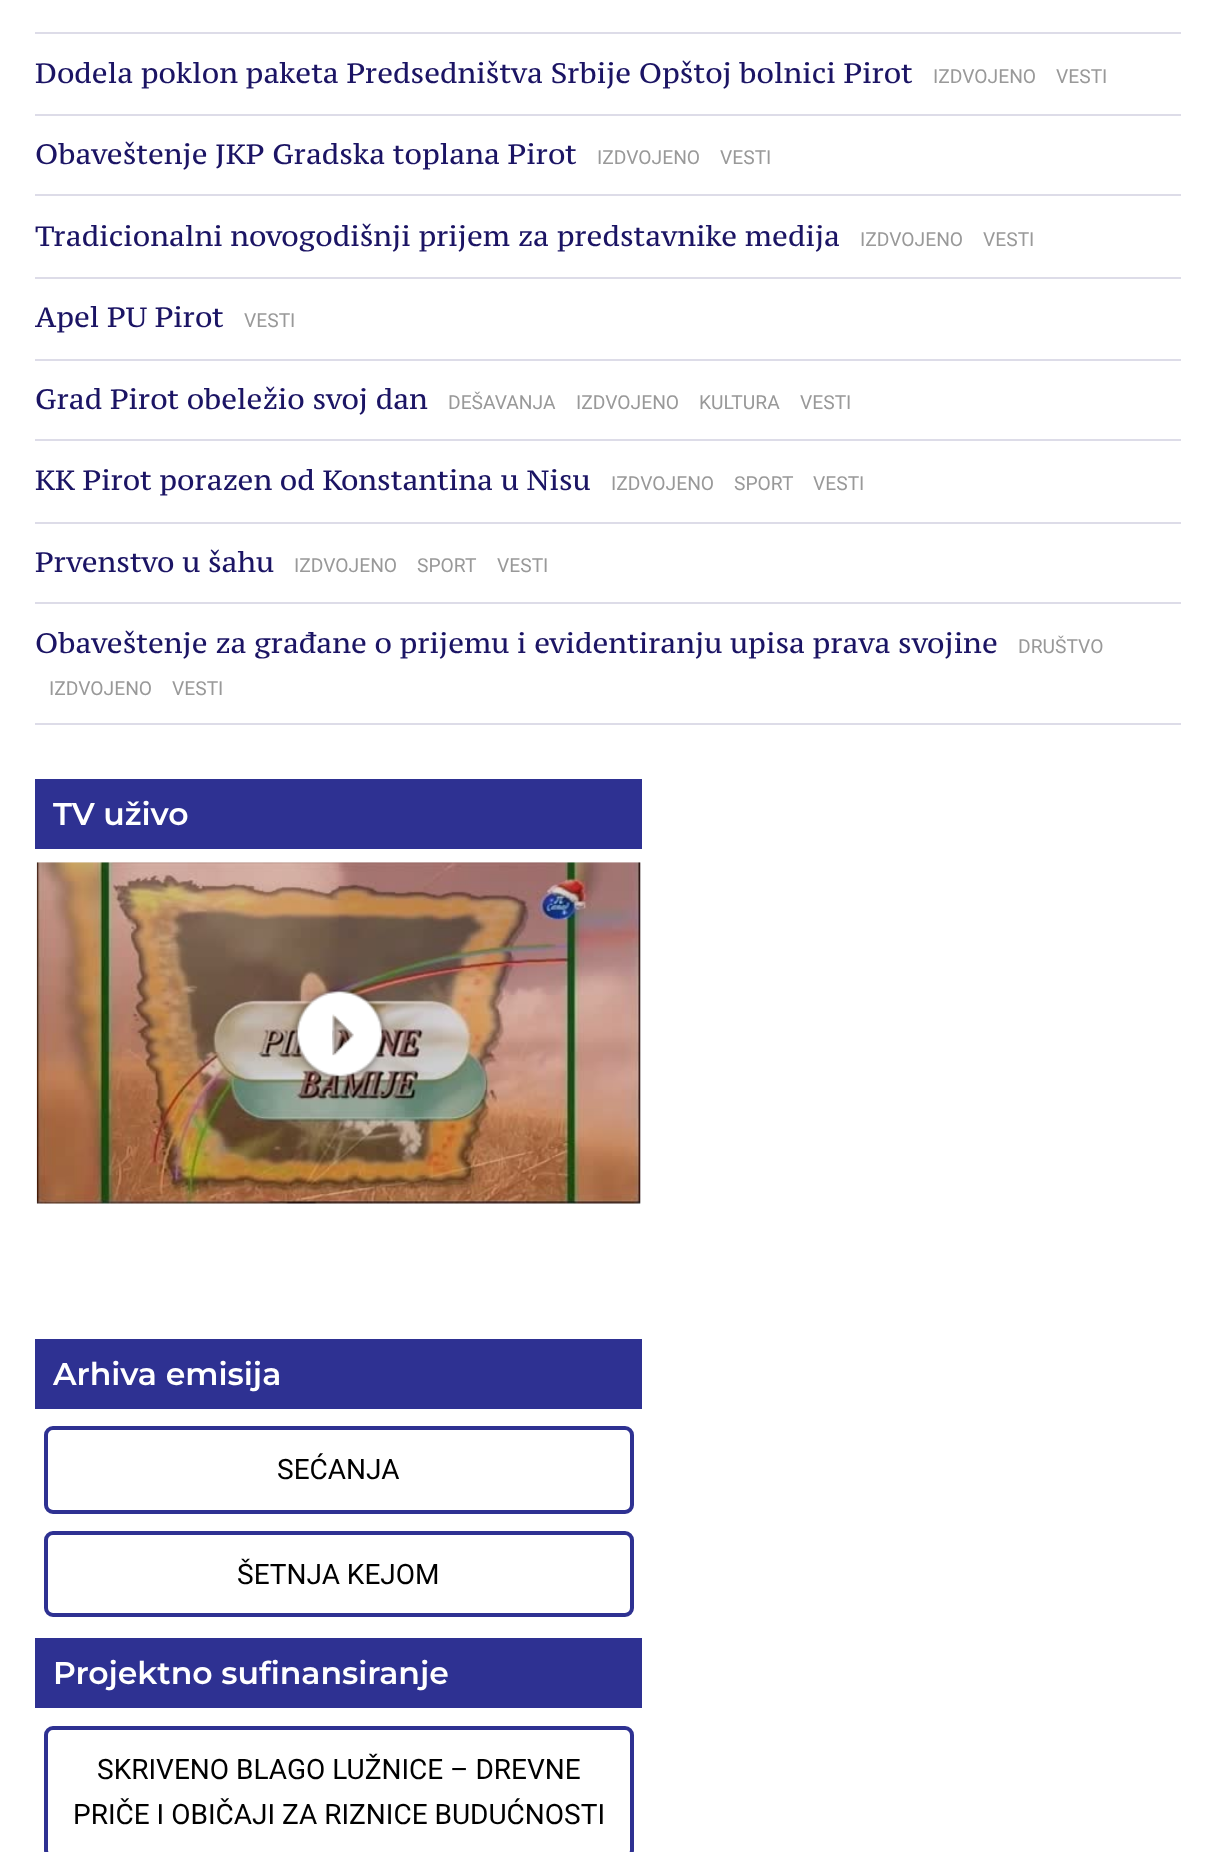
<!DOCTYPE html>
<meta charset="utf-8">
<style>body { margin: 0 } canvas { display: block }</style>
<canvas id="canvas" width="1216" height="1852"></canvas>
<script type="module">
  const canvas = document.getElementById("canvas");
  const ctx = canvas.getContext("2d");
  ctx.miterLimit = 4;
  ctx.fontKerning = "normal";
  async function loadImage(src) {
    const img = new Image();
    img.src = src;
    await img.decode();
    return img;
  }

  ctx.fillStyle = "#ffffff";
  ctx.fillRect(0, 0, 1216, 1852);
  ctx.fillStyle = "#dddce8";
  ctx.fillRect(35, 32, 1146, 2);
  ctx.fillRect(35, 114, 1146, 2);
  ctx.font = "28px PT Serif Caption";
  ctx.fillStyle = "#1b1464";
  ctx.fillText("Dodela poklon paketa Predsedništva Srbije Opštoj bolnici Pirot", 35, 83);
  ctx.font = "19.25px Roboto";
  ctx.fillStyle = "#999999";
  ctx.fillText("IZDVOJENO", 933, 83);
  ctx.fillText("VESTI", 1056, 83);
  ctx.fillStyle = "#dddce8";
  ctx.fillRect(35, 194, 1146, 2);
  ctx.font = "28px PT Serif Caption";
  ctx.fillStyle = "#1b1464";
  ctx.fillText("Obaveštenje JKP Gradska toplana Pirot", 35, 164);
  ctx.font = "19.25px Roboto";
  ctx.fillStyle = "#999999";
  ctx.fillText("IZDVOJENO", 597, 164);
  ctx.fillText("VESTI", 720, 164);
  ctx.fillStyle = "#dddce8";
  ctx.fillRect(35, 277, 1146, 2);
  ctx.font = "28px PT Serif Caption";
  ctx.fillStyle = "#1b1464";
  ctx.fillText("Tradicionalni novogodišnji prijem za predstavnike medija", 35, 246);
  ctx.font = "19.25px Roboto";
  ctx.fillStyle = "#999999";
  ctx.fillText("IZDVOJENO", 860, 246);
  ctx.fillText("VESTI", 983, 246);
  ctx.fillStyle = "#dddce8";
  ctx.fillRect(35, 359, 1146, 2);
  ctx.font = "28px PT Serif Caption";
  ctx.fillStyle = "#1b1464";
  ctx.fillText("Apel PU Pirot", 35, 327);
  ctx.font = "19.25px Roboto";
  ctx.fillStyle = "#999999";
  ctx.fillText("VESTI", 244, 327);
  ctx.fillStyle = "#dddce8";
  ctx.fillRect(35, 439, 1146, 2);
  ctx.font = "28px PT Serif Caption";
  ctx.fillStyle = "#1b1464";
  ctx.fillText("Grad Pirot obeležio svoj dan", 35, 409);
  ctx.font = "19.25px Roboto";
  ctx.fillStyle = "#999999";
  ctx.fillText("DEŠAVANJA", 448, 409);
  ctx.fillText("IZDVOJENO", 576, 409);
  ctx.fillText("KULTURA", 699, 409);
  ctx.fillText("VESTI", 800, 409);
  ctx.fillStyle = "#dddce8";
  ctx.fillRect(35, 522, 1146, 2);
  ctx.font = "28px PT Serif Caption";
  ctx.fillStyle = "#1b1464";
  ctx.fillText("KK Pirot porazen od Konstantina u Nisu", 35, 490);
  ctx.font = "19.25px Roboto";
  ctx.fillStyle = "#999999";
  ctx.fillText("IZDVOJENO", 611, 490);
  ctx.fillText("SPORT", 734, 490);
  ctx.fillText("VESTI", 813, 490);
  ctx.fillStyle = "#dddce8";
  ctx.fillRect(35, 602, 1146, 2);
  ctx.font = "28px PT Serif Caption";
  ctx.fillStyle = "#1b1464";
  ctx.fillText("Prvenstvo u šahu", 35, 572);
  ctx.font = "19.25px Roboto";
  ctx.fillStyle = "#999999";
  ctx.fillText("IZDVOJENO", 294, 572);
  ctx.fillText("SPORT", 417, 572);
  ctx.fillText("VESTI", 497, 572);
  ctx.fillStyle = "#dddce8";
  ctx.fillRect(35, 723, 1146, 2);
  ctx.font = "28px PT Serif Caption";
  ctx.fillStyle = "#1b1464";
  ctx.fillText("Obaveštenje za građane o prijemu i evidentiranju upisa prava svojine", 35, 653);
  ctx.font = "19.25px Roboto";
  ctx.fillStyle = "#999999";
  ctx.fillText("DRUŠTVO", 1018, 653);
  ctx.fillText("IZDVOJENO", 49, 695);
  ctx.fillText("VESTI", 172, 695);
  ctx.fillStyle = "#2e3192";
  ctx.fillRect(35, 779, 607, 70);
  ctx.font = "600 31.5px Montserrat";
  ctx.fillStyle = "#ffffff";
  ctx.fillText("TV uživo", 53, 825);
  ctx.drawImage(await loadImage("img1.png"), 36, 862, 605, 342);
  ctx.fillStyle = "#2e3192";
  ctx.fillRect(35, 1339, 607, 70);
  ctx.fillStyle = "#ffffff";
  ctx.fillText("Arhiva emisija", 53, 1385);
  ctx.beginPath();
  ctx.roundRect(46, 1428, 586, 84, 7);
  ctx.strokeStyle = "#2e3192";
  ctx.lineWidth = 4;
  ctx.stroke();
  ctx.font = "28px Roboto";
  ctx.fillStyle = "#000000";
  ctx.fillText("SEĆANJA", 277, 1479);
  ctx.beginPath();
  ctx.roundRect(46, 1533, 586, 82, 7);
  ctx.stroke();
  ctx.fillText("ŠETNJA KEJOM", 237, 1584);
  ctx.fillStyle = "#2e3192";
  ctx.fillRect(35, 1638, 607, 70);
  ctx.font = "600 31.5px Montserrat";
  ctx.fillStyle = "#ffffff";
  ctx.fillText("Projektno sufinansiranje", 53, 1684);
  ctx.beginPath();
  ctx.roundRect(46, 1728, 586, 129, 7);
  ctx.stroke();
  ctx.font = "28px Roboto";
  ctx.fillStyle = "#000000";
  ctx.fillText("SKRIVENO BLAGO LUŽNICE – DREVNE", 97, 1779);
  ctx.fillText("PRIČE I OBIČAJI ZA RIZNICE BUDUĆNOSTI", 73, 1824);
</script>
